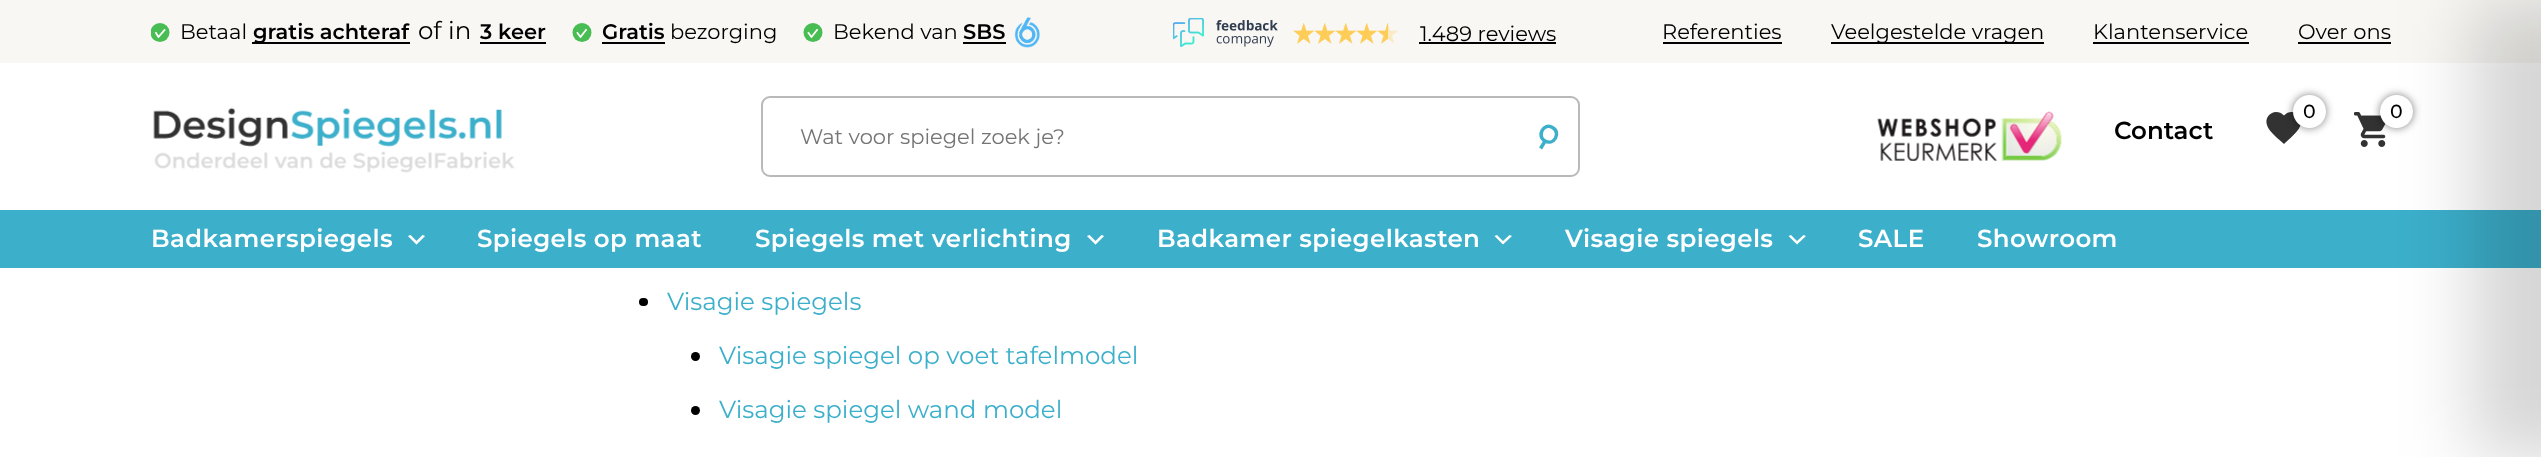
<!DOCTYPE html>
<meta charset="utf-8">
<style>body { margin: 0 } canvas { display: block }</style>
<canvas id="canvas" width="2541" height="457"></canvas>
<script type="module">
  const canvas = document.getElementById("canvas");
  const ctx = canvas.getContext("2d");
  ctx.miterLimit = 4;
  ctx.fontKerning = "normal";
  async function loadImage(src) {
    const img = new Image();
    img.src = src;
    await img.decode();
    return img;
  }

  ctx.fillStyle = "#ffffff";
  ctx.fillRect(0, 0, 2541, 457);
  ctx.fillStyle = "#f8f7f4";
  ctx.fillRect(0, 0, 2541, 63);
  ctx.save();
  ctx.beginPath();
  ctx.rect(151, 23, 19, 19);
  ctx.clip();
  ctx.fillStyle = "#48bd53";
  ctx.beginPath();
  ctx.arc(160, 32.5, 9.5, 0, Math.PI * 2);
  ctx.fill();
  ctx.restore();
  ctx.beginPath();
  ctx.moveTo(156, 33);
  ctx.lineTo(158.5, 37);
  ctx.lineTo(164.5, 30);
  ctx.strokeStyle = "#ffffff";
  ctx.lineWidth = 1.8;
  ctx.lineCap = "square";
  ctx.lineJoin = "round";
  ctx.stroke();
  ctx.font = "21px Montserrat";
  ctx.fillStyle = "#000000";
  ctx.fillText("Betaal", 180, 39);
  ctx.fillRect(252, 42, 158, 2);
  ctx.font = "600 21px Montserrat";
  ctx.fillText("gratis achteraf", 253, 39);
  ctx.font = "24.5px Montserrat";
  ctx.fillText("of in", 418, 39);
  ctx.font = "600 21px Montserrat";
  ctx.fillText("3 keer", 480, 39);
  ctx.fillRect(480, 42, 66, 2);
  ctx.fillStyle = "#48bd53";
  ctx.beginPath();
  ctx.arc(582, 32.5, 9.5, 0, Math.PI * 2);
  ctx.fill();
  ctx.beginPath();
  ctx.moveTo(577.5, 33);
  ctx.lineTo(580.5, 37);
  ctx.lineTo(586, 30);
  ctx.stroke();
  ctx.fillStyle = "#000000";
  ctx.fillText("Gratis", 602, 39);
  ctx.fillRect(602, 42, 63, 2);
  ctx.font = "21px Montserrat";
  ctx.fillText("bezorging", 670, 39);
  ctx.fillStyle = "#48bd53";
  ctx.beginPath();
  ctx.arc(813, 32.5, 9.5, 0, Math.PI * 2);
  ctx.fill();
  ctx.beginPath();
  ctx.moveTo(808.5, 33);
  ctx.lineTo(811.5, 37);
  ctx.lineTo(817, 30);
  ctx.stroke();
  ctx.fillStyle = "#000000";
  ctx.fillText("Bekend van", 833, 39);
  ctx.font = "600 21px Montserrat";
  ctx.fillText("SBS", 963, 39);
  ctx.fillRect(963, 42, 43, 2);
  ctx.drawImage(await loadImage("img1.png"), 1014, 17, 26, 31);
  ctx.drawImage(await loadImage("img2.png"), 1173, 18, 105, 29);
  ctx.drawImage(await loadImage("img3.png"), 1293, 23, 21, 21);
  ctx.drawImage(await loadImage("img4.png"), 1293, 23, 21, 21);
  ctx.drawImage(await loadImage("img3.png"), 1314, 23, 21, 21);
  ctx.drawImage(await loadImage("img4.png"), 1314, 23, 21, 21);
  ctx.drawImage(await loadImage("img3.png"), 1335, 23, 21, 21);
  ctx.drawImage(await loadImage("img4.png"), 1335, 23, 21, 21);
  ctx.drawImage(await loadImage("img3.png"), 1356, 23, 21, 21);
  ctx.drawImage(await loadImage("img4.png"), 1356, 23, 21, 21);
  ctx.drawImage(await loadImage("img3.png"), 1377, 23, 21, 21);
  ctx.drawImage(await loadImage("img5.png"), 1377, 23, 11, 21);
  ctx.font = "21px Montserrat";
  ctx.fillText("1.489 reviews", 1420, 41);
  ctx.fillRect(1419, 42, 137, 2);
  ctx.fillText("Referenties", 1662, 39);
  ctx.fillRect(1663, 42, 119, 2);
  ctx.fillRect(1831, 42, 213, 2);
  ctx.fillText("Veelgestelde vragen", 1831, 39);
  ctx.fillText("Klantenservice", 2093, 39);
  ctx.fillRect(2093, 42, 156, 2);
  ctx.fillText("Over ons", 2298, 39);
  ctx.fillRect(2298, 42, 93, 2);
  ctx.drawImage(await loadImage("img6.png"), 153, 107, 362, 66);
  ctx.beginPath();
  ctx.roundRect(762, 97, 817, 79, 8);
  ctx.strokeStyle = "#b9b9b9";
  ctx.lineWidth = 2;
  ctx.lineJoin = "miter";
  ctx.stroke();
  ctx.fillStyle = "#757575";
  ctx.fillText("Wat voor spiegel zoek je?", 800, 144);
  ctx.beginPath();
  ctx.moveTo(1552.5, 127.5);
  ctx.bezierCurveTo(1561.5, 132.5, 1554, 146, 1545, 141);
  ctx.bezierCurveTo(1536, 136, 1544, 122, 1552.5, 127.5);
  ctx.closePath();
  ctx.strokeStyle = "#3cafcb";
  ctx.lineWidth = 3.5;
  ctx.lineCap = "butt";
  ctx.stroke();
  ctx.beginPath();
  ctx.moveTo(1544.5, 142);
  ctx.lineTo(1541.5, 147);
  ctx.lineCap = "square";
  ctx.stroke();
  ctx.drawImage(await loadImage("img7.png"), 1877, 111, 185, 50);
  ctx.font = "600 24.5px Montserrat";
  ctx.fillStyle = "#000000";
  ctx.fillText("Contact", 2114, 139);
  ctx.fillStyle = "#323232";
  ctx.beginPath();
  ctx.moveTo(2284, 144);
  ctx.bezierCurveTo(2278.5, 139, 2270.5, 133, 2267.5, 126.5);
  ctx.bezierCurveTo(2262.5, 115, 2276, 107, 2284, 115.5);
  ctx.bezierCurveTo(2291.5, 107, 2305, 115, 2300, 126.5);
  ctx.bezierCurveTo(2297, 133, 2289, 139, 2284, 144);
  ctx.closePath();
  ctx.fill();
  ctx.fillStyle = "rgba(0, 0, 0, 0.5)";
  ctx.filter = "blur(4.5px)";
  ctx.beginPath();
  ctx.roundRect(2293, 95, 33, 33, 16.5);
  ctx.fill();
  ctx.filter = "none";
  ctx.fillStyle = "#ffffff";
  ctx.beginPath();
  ctx.arc(2309.5, 111.5, 16.5, 0, Math.PI * 2);
  ctx.fill();
  ctx.font = "500 19px Montserrat";
  ctx.fillStyle = "#000000";
  ctx.fillText("0", 2303, 118);
  ctx.drawImage(await loadImage("img8.png"), 2354, 112, 32, 35);
  ctx.fillStyle = "rgba(0, 0, 0, 0.5)";
  ctx.filter = "blur(4.5px)";
  ctx.beginPath();
  ctx.roundRect(2380, 95, 33, 33, 16.5);
  ctx.fill();
  ctx.filter = "none";
  ctx.fillStyle = "#ffffff";
  ctx.beginPath();
  ctx.arc(2396.5, 111.5, 16.5, 0, Math.PI * 2);
  ctx.fill();
  ctx.fillStyle = "#000000";
  ctx.fillText("0", 2390, 118);
  ctx.fillStyle = "#3cafcb";
  ctx.fillRect(0, 210, 2541, 58);
  ctx.letterSpacing = "0.4px";
  ctx.font = "600 24.5px Montserrat";
  ctx.fillStyle = "#ffffff";
  ctx.fillText("Badkamerspiegels", 151, 247);
  ctx.drawImage(await loadImage("img9.png"), 408, 234, 17, 11);
  ctx.fillText("Spiegels op maat", 477, 247);
  ctx.fillText("Spiegels met verlichting", 755, 247);
  ctx.drawImage(await loadImage("img9.png"), 1087, 234, 17, 11);
  ctx.fillText("Badkamer spiegelkasten", 1157, 247);
  ctx.beginPath();
  ctx.moveTo(1497, 235);
  ctx.lineTo(1503, 241);
  ctx.lineTo(1509.5, 235);
  ctx.lineTo(1512, 236);
  ctx.lineTo(1503, 244.5);
  ctx.lineTo(1494.5, 236);
  ctx.closePath();
  ctx.fill();
  ctx.fillText("Visagie spiegels", 1565, 247);
  ctx.beginPath();
  ctx.moveTo(1791, 235);
  ctx.lineTo(1797, 241);
  ctx.lineTo(1803.5, 235);
  ctx.lineTo(1806, 236);
  ctx.lineTo(1797, 244.5);
  ctx.lineTo(1788.5, 236);
  ctx.closePath();
  ctx.fill();
  ctx.fillText("SALE", 1858, 247);
  ctx.fillText("Showroom", 1977, 247);
  ctx.fillStyle = "rgba(0, 0, 0, 0.16)";
  ctx.filter = "blur(35px)";
  ctx.beginPath();
  ctx.rect(2471, 0, 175, 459);
  ctx.fill();
  ctx.filter = "none";
  ctx.fillStyle = "#000000";
  ctx.beginPath();
  ctx.roundRect(639, 298, 9, 8, 4);
  ctx.fill();
  ctx.letterSpacing = "0px";
  ctx.font = "24.5px Montserrat";
  ctx.fillStyle = "#3cafcb";
  ctx.fillText("Visagie spiegels", 667, 310);
  ctx.fillStyle = "#000000";
  ctx.beginPath();
  ctx.arc(695.5, 356.5, 4.5, 0, Math.PI * 2);
  ctx.fill();
  ctx.fillStyle = "#3cafcb";
  ctx.fillText("Visagie spiegel op voet tafelmodel", 719, 364);
  ctx.fillStyle = "#000000";
  ctx.beginPath();
  ctx.arc(695.5, 410.5, 4.5, 0, Math.PI * 2);
  ctx.fill();
  ctx.fillStyle = "#3cafcb";
  ctx.fillText("Visagie spiegel wand model", 719, 418);
</script>
